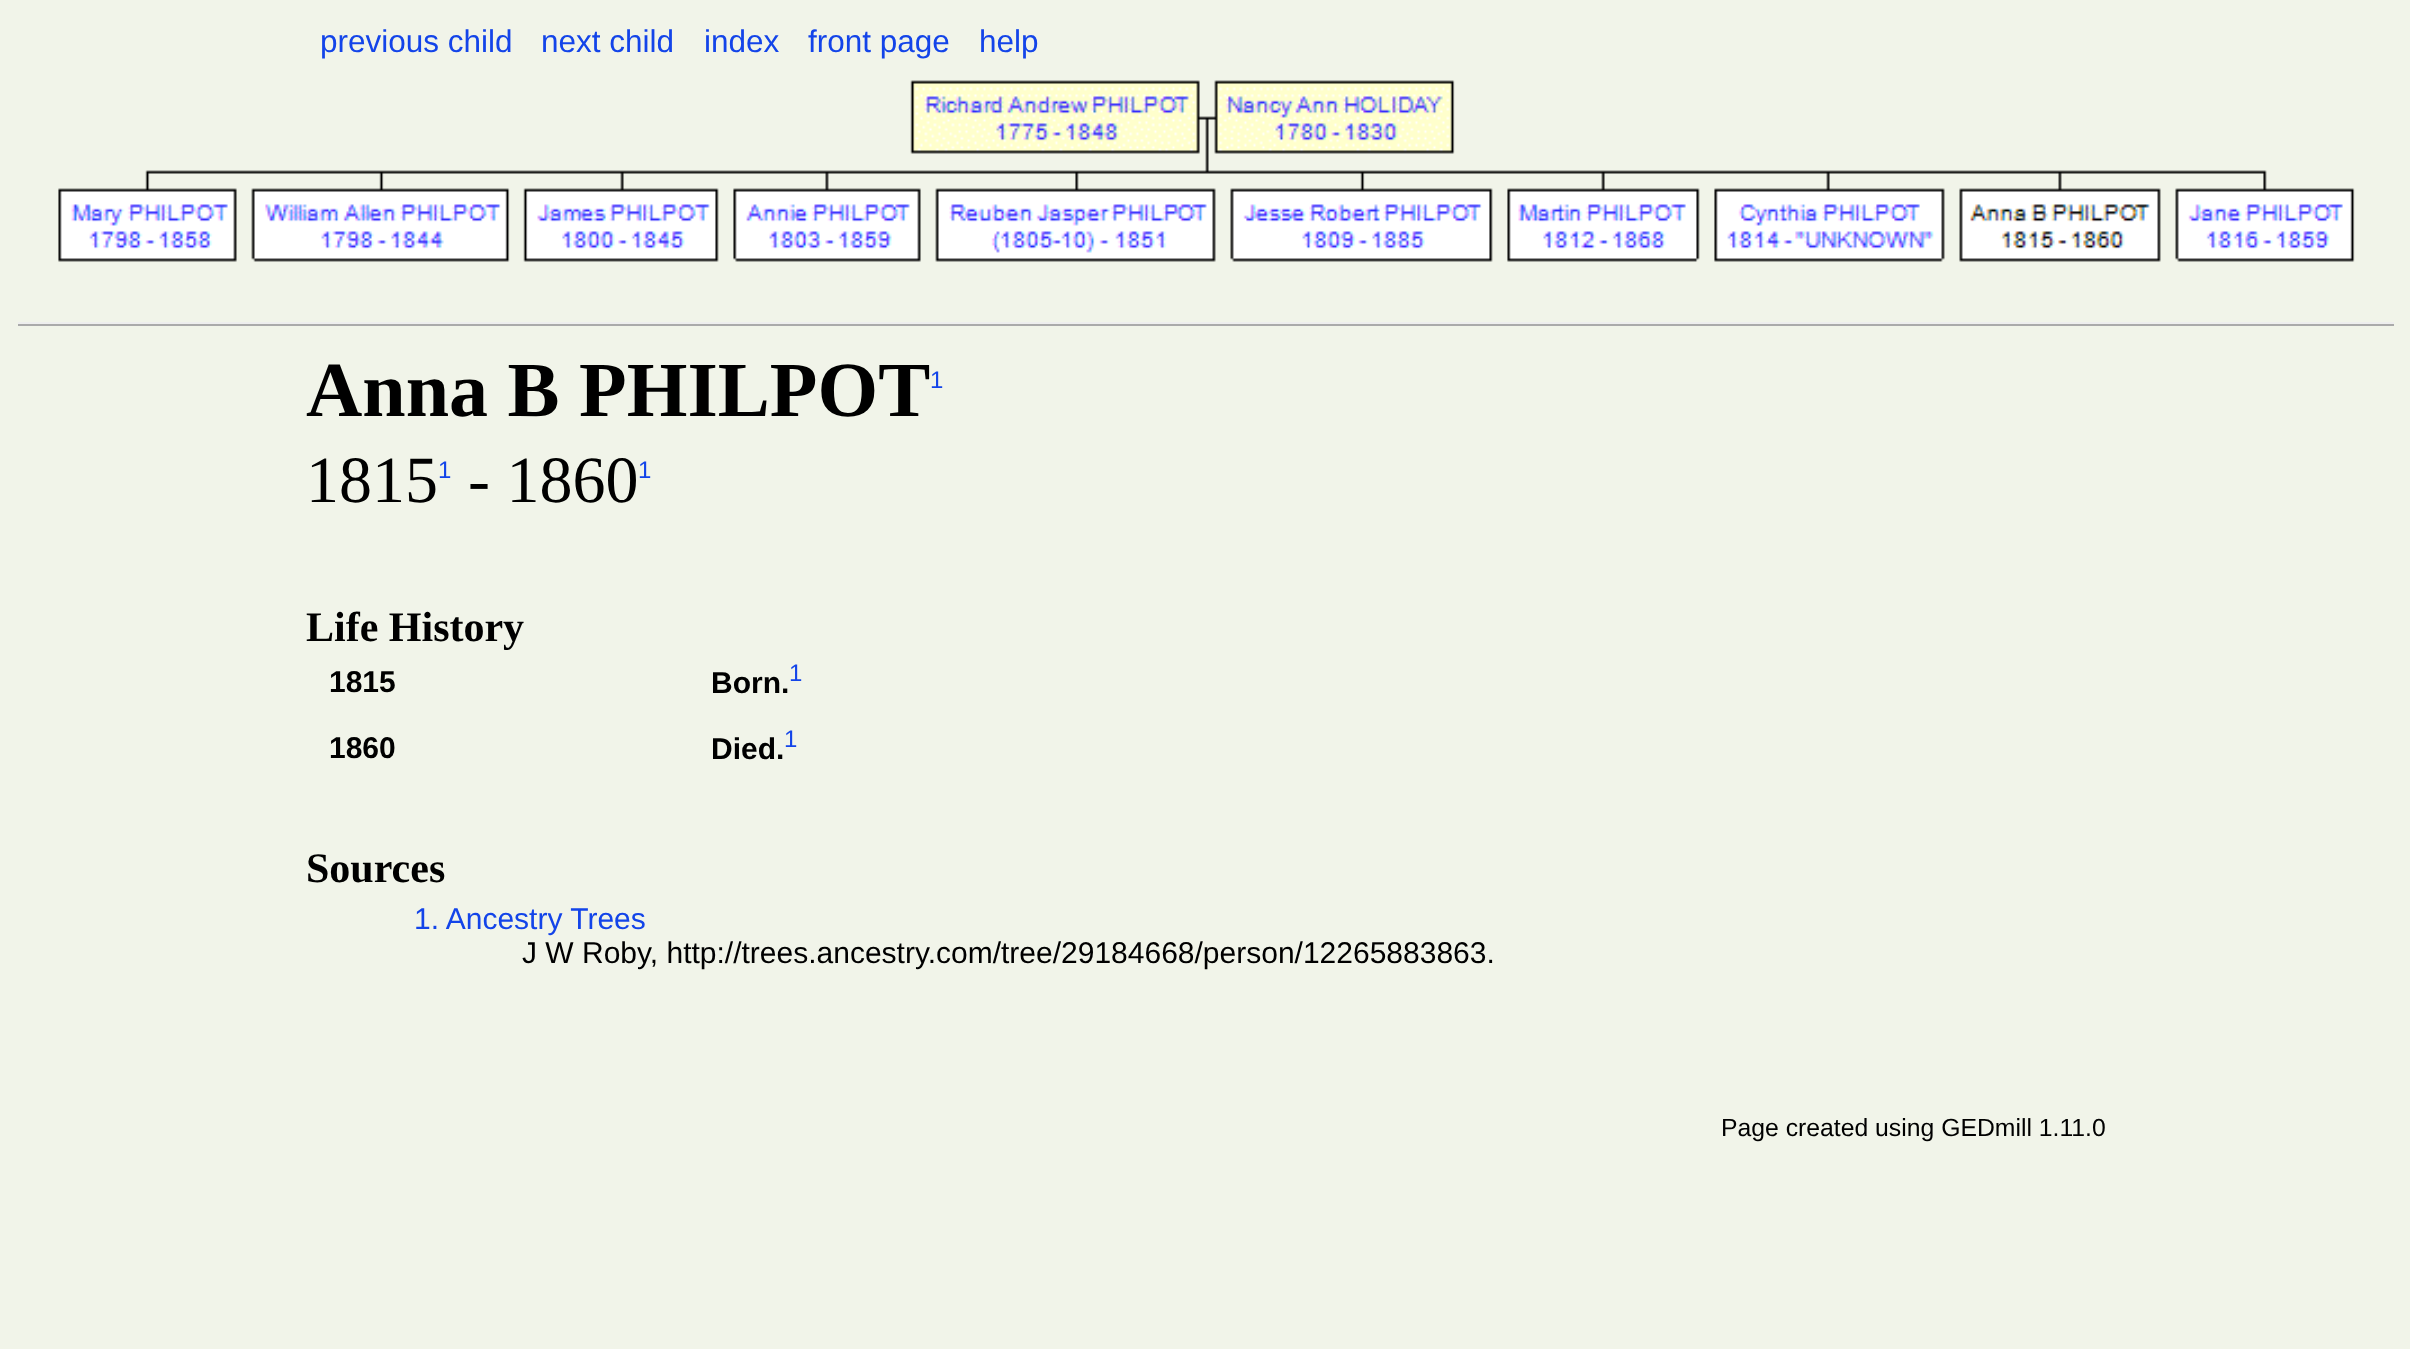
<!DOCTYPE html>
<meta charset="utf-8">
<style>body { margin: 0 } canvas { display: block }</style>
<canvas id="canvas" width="2410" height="1349"></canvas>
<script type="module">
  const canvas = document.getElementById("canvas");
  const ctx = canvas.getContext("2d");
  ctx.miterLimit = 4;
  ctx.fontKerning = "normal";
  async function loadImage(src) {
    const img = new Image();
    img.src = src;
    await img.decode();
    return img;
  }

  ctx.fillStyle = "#f1f4e9";
  ctx.fillRect(0, 0, 2410, 1349);
  ctx.font = "31.5px Liberation Sans";
  ctx.fillStyle = "#1344e9";
  ctx.fillText("previous child", 320, 52);
  ctx.fillText("next child", 541, 52);
  ctx.fillText("index", 704, 52);
  ctx.fillText("front page", 808, 52);
  ctx.fillText("help", 979, 52);
  ctx.drawImage(await loadImage("img1.png"), 58, 80, 2297, 182);
  ctx.fillStyle = "#eeeeee";
  ctx.fillRect(18, 322, 2376, 2);
  ctx.fillStyle = "#aaaaaa";
  ctx.fillRect(18, 324, 2376, 2);
  ctx.font = "bold 78px Liberation Serif";
  ctx.fillStyle = "#000000";
  ctx.fillText("Anna B PHILPOT", 306, 416);
  ctx.font = "24px Liberation Sans";
  ctx.fillStyle = "#1344e9";
  ctx.fillText("1", 930, 388);
  ctx.font = "66px Liberation Serif";
  ctx.fillStyle = "#000000";
  ctx.fillText("1815", 306, 502);
  ctx.font = "24px Liberation Sans";
  ctx.fillStyle = "#1344e9";
  ctx.fillText("1", 438, 478);
  ctx.font = "66px Liberation Serif";
  ctx.fillStyle = "#000000";
  ctx.fillText("- 1860", 468, 502);
  ctx.font = "24px Liberation Sans";
  ctx.fillStyle = "#1344e9";
  ctx.fillText("1", 638, 478);
  ctx.font = "bold 42px Liberation Serif";
  ctx.fillStyle = "#000000";
  ctx.fillText("Life History", 306, 641);
  ctx.font = "bold 30px Liberation Sans";
  ctx.fillText("1815", 329, 692);
  ctx.fillText("Born.", 711, 693);
  ctx.font = "24px Liberation Sans";
  ctx.fillStyle = "#1344e9";
  ctx.fillText("1", 789, 681);
  ctx.font = "bold 30px Liberation Sans";
  ctx.fillStyle = "#000000";
  ctx.fillText("1860", 329, 758);
  ctx.fillText("Died.", 711, 759);
  ctx.font = "24px Liberation Sans";
  ctx.fillStyle = "#1344e9";
  ctx.fillText("1", 784, 747);
  ctx.font = "bold 42px Liberation Serif";
  ctx.fillStyle = "#000000";
  ctx.fillText("Sources", 306, 882);
  ctx.font = "30px Liberation Sans";
  ctx.fillStyle = "#1344e9";
  ctx.fillText("1. Ancestry Trees", 414, 929);
  ctx.fillStyle = "#000000";
  ctx.fillText("J W Roby, http://trees.ancestry.com/tree/29184668/person/12265883863.", 522, 963);
  ctx.font = "24.75px Liberation Sans";
  ctx.fillText("Page created using GEDmill 1.11.0", 1721, 1136);
</script>
